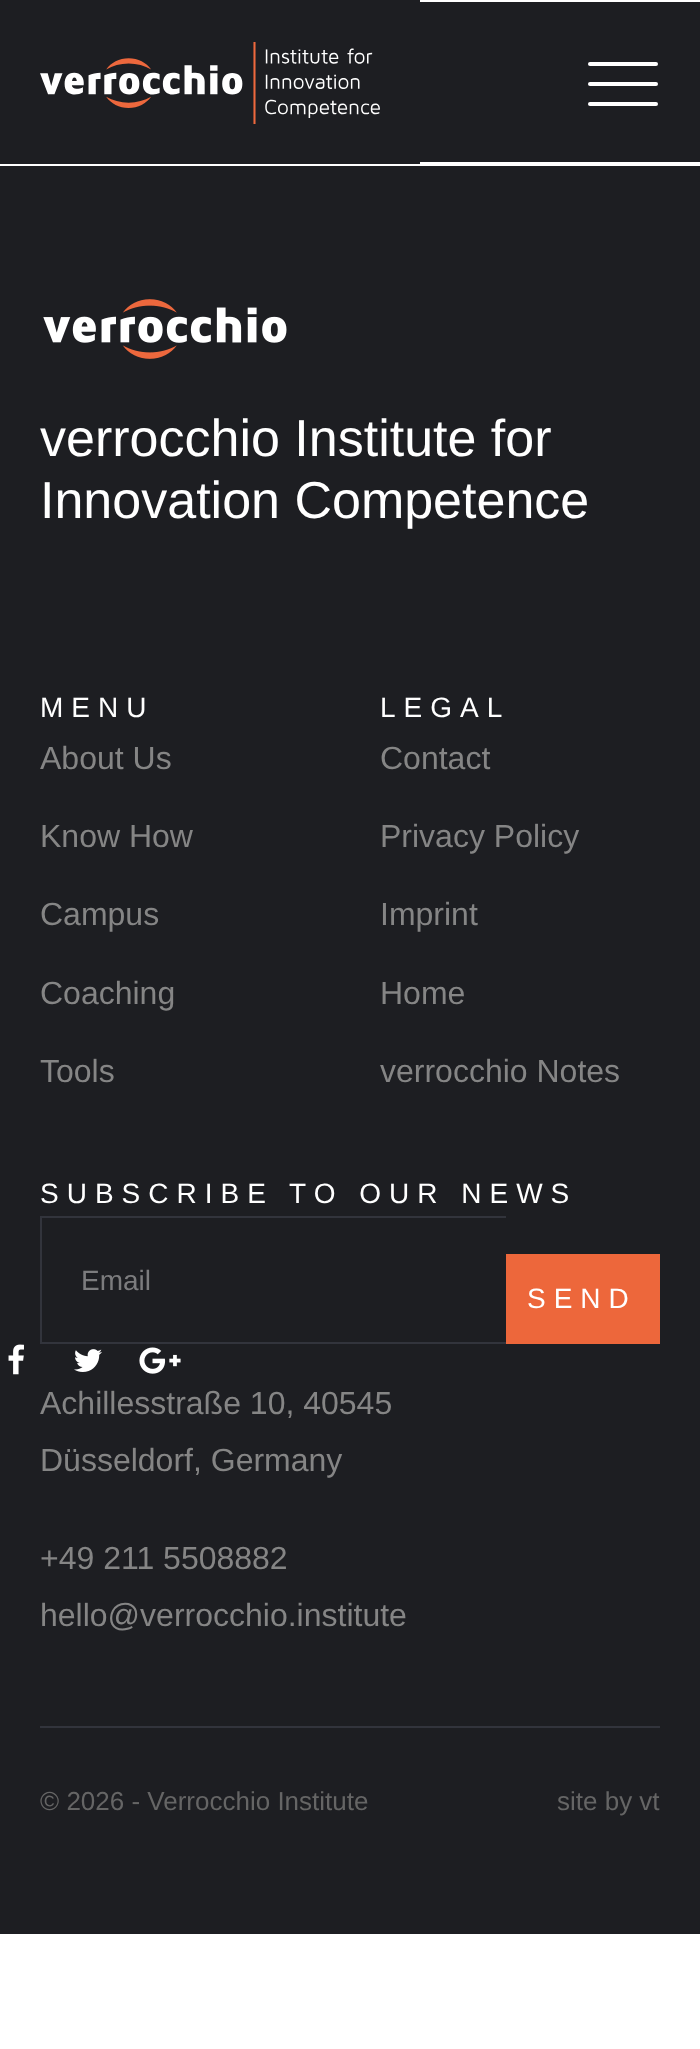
<!DOCTYPE html>
<meta charset="utf-8">
<style>body { margin: 0 } canvas { display: block }</style>
<canvas id="canvas" width="700" height="2049"></canvas>
<script type="module">
  const canvas = document.getElementById("canvas");
  const ctx = canvas.getContext("2d");
  ctx.miterLimit = 4;
  ctx.fontKerning = "normal";
  async function loadImage(src) {
    const img = new Image();
    img.src = src;
    await img.decode();
    return img;
  }

  ctx.fillStyle = "#ffffff";
  ctx.fillRect(0, 0, 700, 2049);
  ctx.fillStyle = "#1d1e22";
  ctx.fillRect(0, 0, 420, 164);
  ctx.drawImage(await loadImage("img1.png"), 40, 42, 340, 82);
  ctx.fillRect(420, 2, 280, 160);
  ctx.fillStyle = "#ffffff";
  ctx.beginPath();
  ctx.roundRect(588, 62, 70, 4, 2);
  ctx.fill();
  ctx.beginPath();
  ctx.roundRect(588, 82, 70, 4, 2);
  ctx.fill();
  ctx.beginPath();
  ctx.roundRect(588, 102, 70, 4, 2);
  ctx.fill();
  ctx.fillStyle = "#1d1e22";
  ctx.fillRect(0, 166, 700, 1768);
  ctx.drawImage(await loadImage("img2.png"), 43, 299, 244, 60);
  ctx.font = "52px Liberation Sans";
  ctx.fillStyle = "#ffffff";
  ctx.fillText("verrocchio Institute for", 40, 456);
  ctx.fillText("Innovation Competence", 40, 518);
  ctx.letterSpacing = "8px";
  ctx.font = "28px Liberation Sans";
  ctx.fillText("MENU", 40, 717);
  ctx.letterSpacing = "0px";
  ctx.font = "32px Liberation Sans";
  ctx.fillStyle = "#858585";
  ctx.fillText("About Us", 40, 769);
  ctx.fillText("Know How", 40, 847);
  ctx.fillText("Campus", 40, 925);
  ctx.fillText("Coaching", 40, 1004);
  ctx.fillText("Tools", 40, 1082);
  ctx.letterSpacing = "8px";
  ctx.font = "28px Liberation Sans";
  ctx.fillStyle = "#ffffff";
  ctx.fillText("LEGAL", 380, 717);
  ctx.letterSpacing = "0px";
  ctx.font = "32px Liberation Sans";
  ctx.fillStyle = "#858585";
  ctx.fillText("Contact", 380, 769);
  ctx.fillText("Privacy Policy", 380, 847);
  ctx.fillText("Imprint", 380, 925);
  ctx.fillText("Home", 380, 1004);
  ctx.fillText("verrocchio Notes", 380, 1082);
  ctx.letterSpacing = "8px";
  ctx.font = "28px Liberation Sans";
  ctx.fillStyle = "#ffffff";
  ctx.fillText("SUBSCRIBE TO OUR NEWS", 40, 1203);
  ctx.fillStyle = "#32343c";
  ctx.fillRect(40, 1216, 466, 2);
  ctx.fillRect(40, 1342, 466, 2);
  ctx.fillRect(40, 1216, 2, 128);
  ctx.letterSpacing = "0px";
  ctx.fillStyle = "#7c7c7e";
  ctx.fillText("Email", 81, 1290);
  ctx.fillStyle = "#ed673b";
  ctx.fillRect(506, 1256, 152, 86);
  ctx.fillRect(506, 1254, 154, 2);
  ctx.fillRect(658, 1254, 2, 90);
  ctx.fillRect(506, 1342, 154, 2);
  ctx.letterSpacing = "8px";
  ctx.fillStyle = "#ffffff";
  ctx.fillText("SEND", 527, 1308);
  ctx.drawImage(await loadImage("img3.png"), 8, 1344, 16, 31);
  ctx.drawImage(await loadImage("img4.png"), 74, 1349, 28, 23);
  ctx.drawImage(await loadImage("img5.png"), 139, 1347, 42, 27);
  ctx.letterSpacing = "0px";
  ctx.font = "32px Liberation Sans";
  ctx.fillStyle = "#858585";
  ctx.fillText("Achillesstraße 10, 40545", 40, 1414);
  ctx.fillText("Düsseldorf, Germany", 40, 1471);
  ctx.fillText("+49 211 5508882", 40, 1569);
  ctx.fillText("hello@verrocchio.institute", 40, 1626);
  ctx.fillStyle = "#32343c";
  ctx.fillRect(40, 1726, 620, 2);
  ctx.font = "26px Liberation Sans";
  ctx.fillStyle = "#656565";
  ctx.fillText("© 2026 - Verrocchio Institute", 40, 1810);
  ctx.fillText("site by vt", 557, 1810);
</script>
